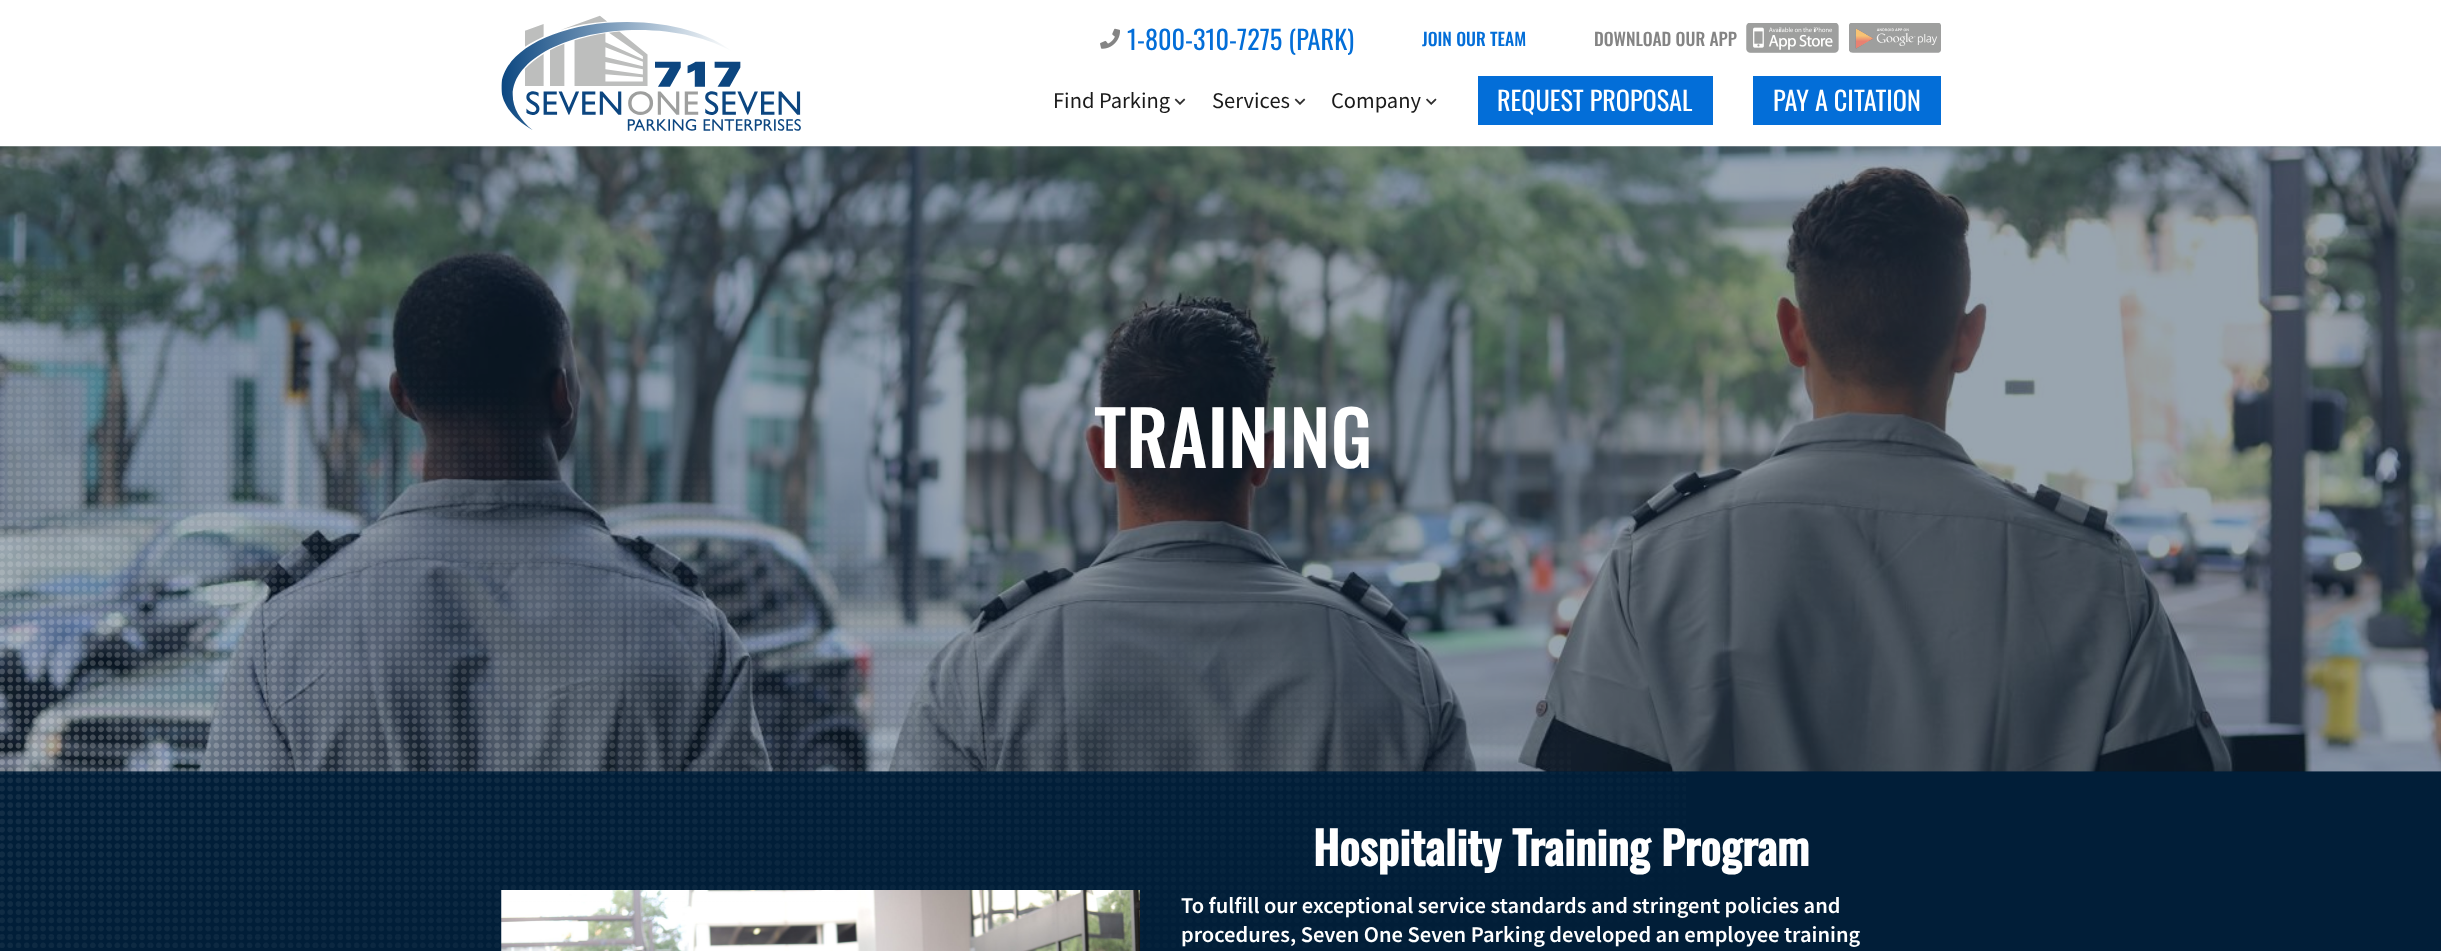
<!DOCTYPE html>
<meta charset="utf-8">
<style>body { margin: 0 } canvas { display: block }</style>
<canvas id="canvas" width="2441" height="951"></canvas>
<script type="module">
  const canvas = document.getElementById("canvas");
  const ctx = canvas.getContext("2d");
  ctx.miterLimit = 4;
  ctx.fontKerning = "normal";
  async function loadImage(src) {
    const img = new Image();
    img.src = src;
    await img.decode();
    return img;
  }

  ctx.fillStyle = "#ffffff";
  ctx.fillRect(0, 0, 2441, 951);
  ctx.drawImage(await loadImage("img1.png"), 501, 15, 300, 116);
  ctx.drawImage(await loadImage("img2.png"), 1100, 28, 20, 21);
  ctx.font = "26.25px Oswald";
  ctx.fillStyle = "#036ed8";
  ctx.fillText("1-800-310-7275 (PARK)", 1127, 50);
  ctx.font = "500 17.5px Oswald";
  ctx.fillText("JOIN OUR TEAM", 1422, 46);
  ctx.fillStyle = "#848484";
  ctx.fillText("DOWNLOAD OUR APP", 1594, 46);
  ctx.drawImage(await loadImage("img3.png"), 1746, 23, 93, 30);
  ctx.drawImage(await loadImage("img4.png"), 1849, 23, 92, 30);
  ctx.font = "22.5px Source Sans Pro";
  ctx.fillStyle = "#1a1a1a";
  ctx.fillText("Find Parking", 1053, 108);
  ctx.drawImage(await loadImage("img5.png"), 1174, 98, 12, 7);
  ctx.fillText("Services", 1212, 108);
  ctx.drawImage(await loadImage("img5.png"), 1294, 98, 12, 7);
  ctx.fillText("Company", 1331, 108);
  ctx.drawImage(await loadImage("img6.png"), 1426, 98, 11, 7);
  ctx.fillStyle = "#036ed8";
  ctx.fillRect(1478, 76, 235, 49);
  ctx.font = "26.25px Oswald";
  ctx.fillStyle = "#ffffff";
  ctx.fillText("REQUEST PROPOSAL", 1497, 111);
  ctx.fillStyle = "#036ed8";
  ctx.fillRect(1753, 76, 188, 49);
  ctx.fillStyle = "#ffffff";
  ctx.fillText("PAY A CITATION", 1773, 111);
  ctx.fillStyle = "#011e38";
  ctx.fillRect(0, 771, 2441, 180);
  ctx.drawImage(await loadImage("img9.png"), 0, 771, 1686, 177);
  ctx.drawImage(await loadImage("img7.png"), 0, 146, 2441, 626);
  ctx.drawImage(await loadImage("img8.png"), 0, 257, 1571, 515);
  ctx.font = "500 75px Oswald";
  ctx.fillStyle = "#ffffff";
  ctx.fillText("TRAINING", 1094, 468);
  ctx.drawImage(await loadImage("img10.png"), 501, 890, 639, 61);
  ctx.font = "bold 45px Oswald";
  ctx.fillText("Hospitality Training Program", 1313, 866);
  ctx.font = "600 22.5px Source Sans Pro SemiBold";
  ctx.fillText("To fulfill our exceptional service standards and stringent policies and", 1181, 913);
  ctx.fillText("procedures, Seven One Seven Parking developed an employee training", 1181, 942);
</script>
